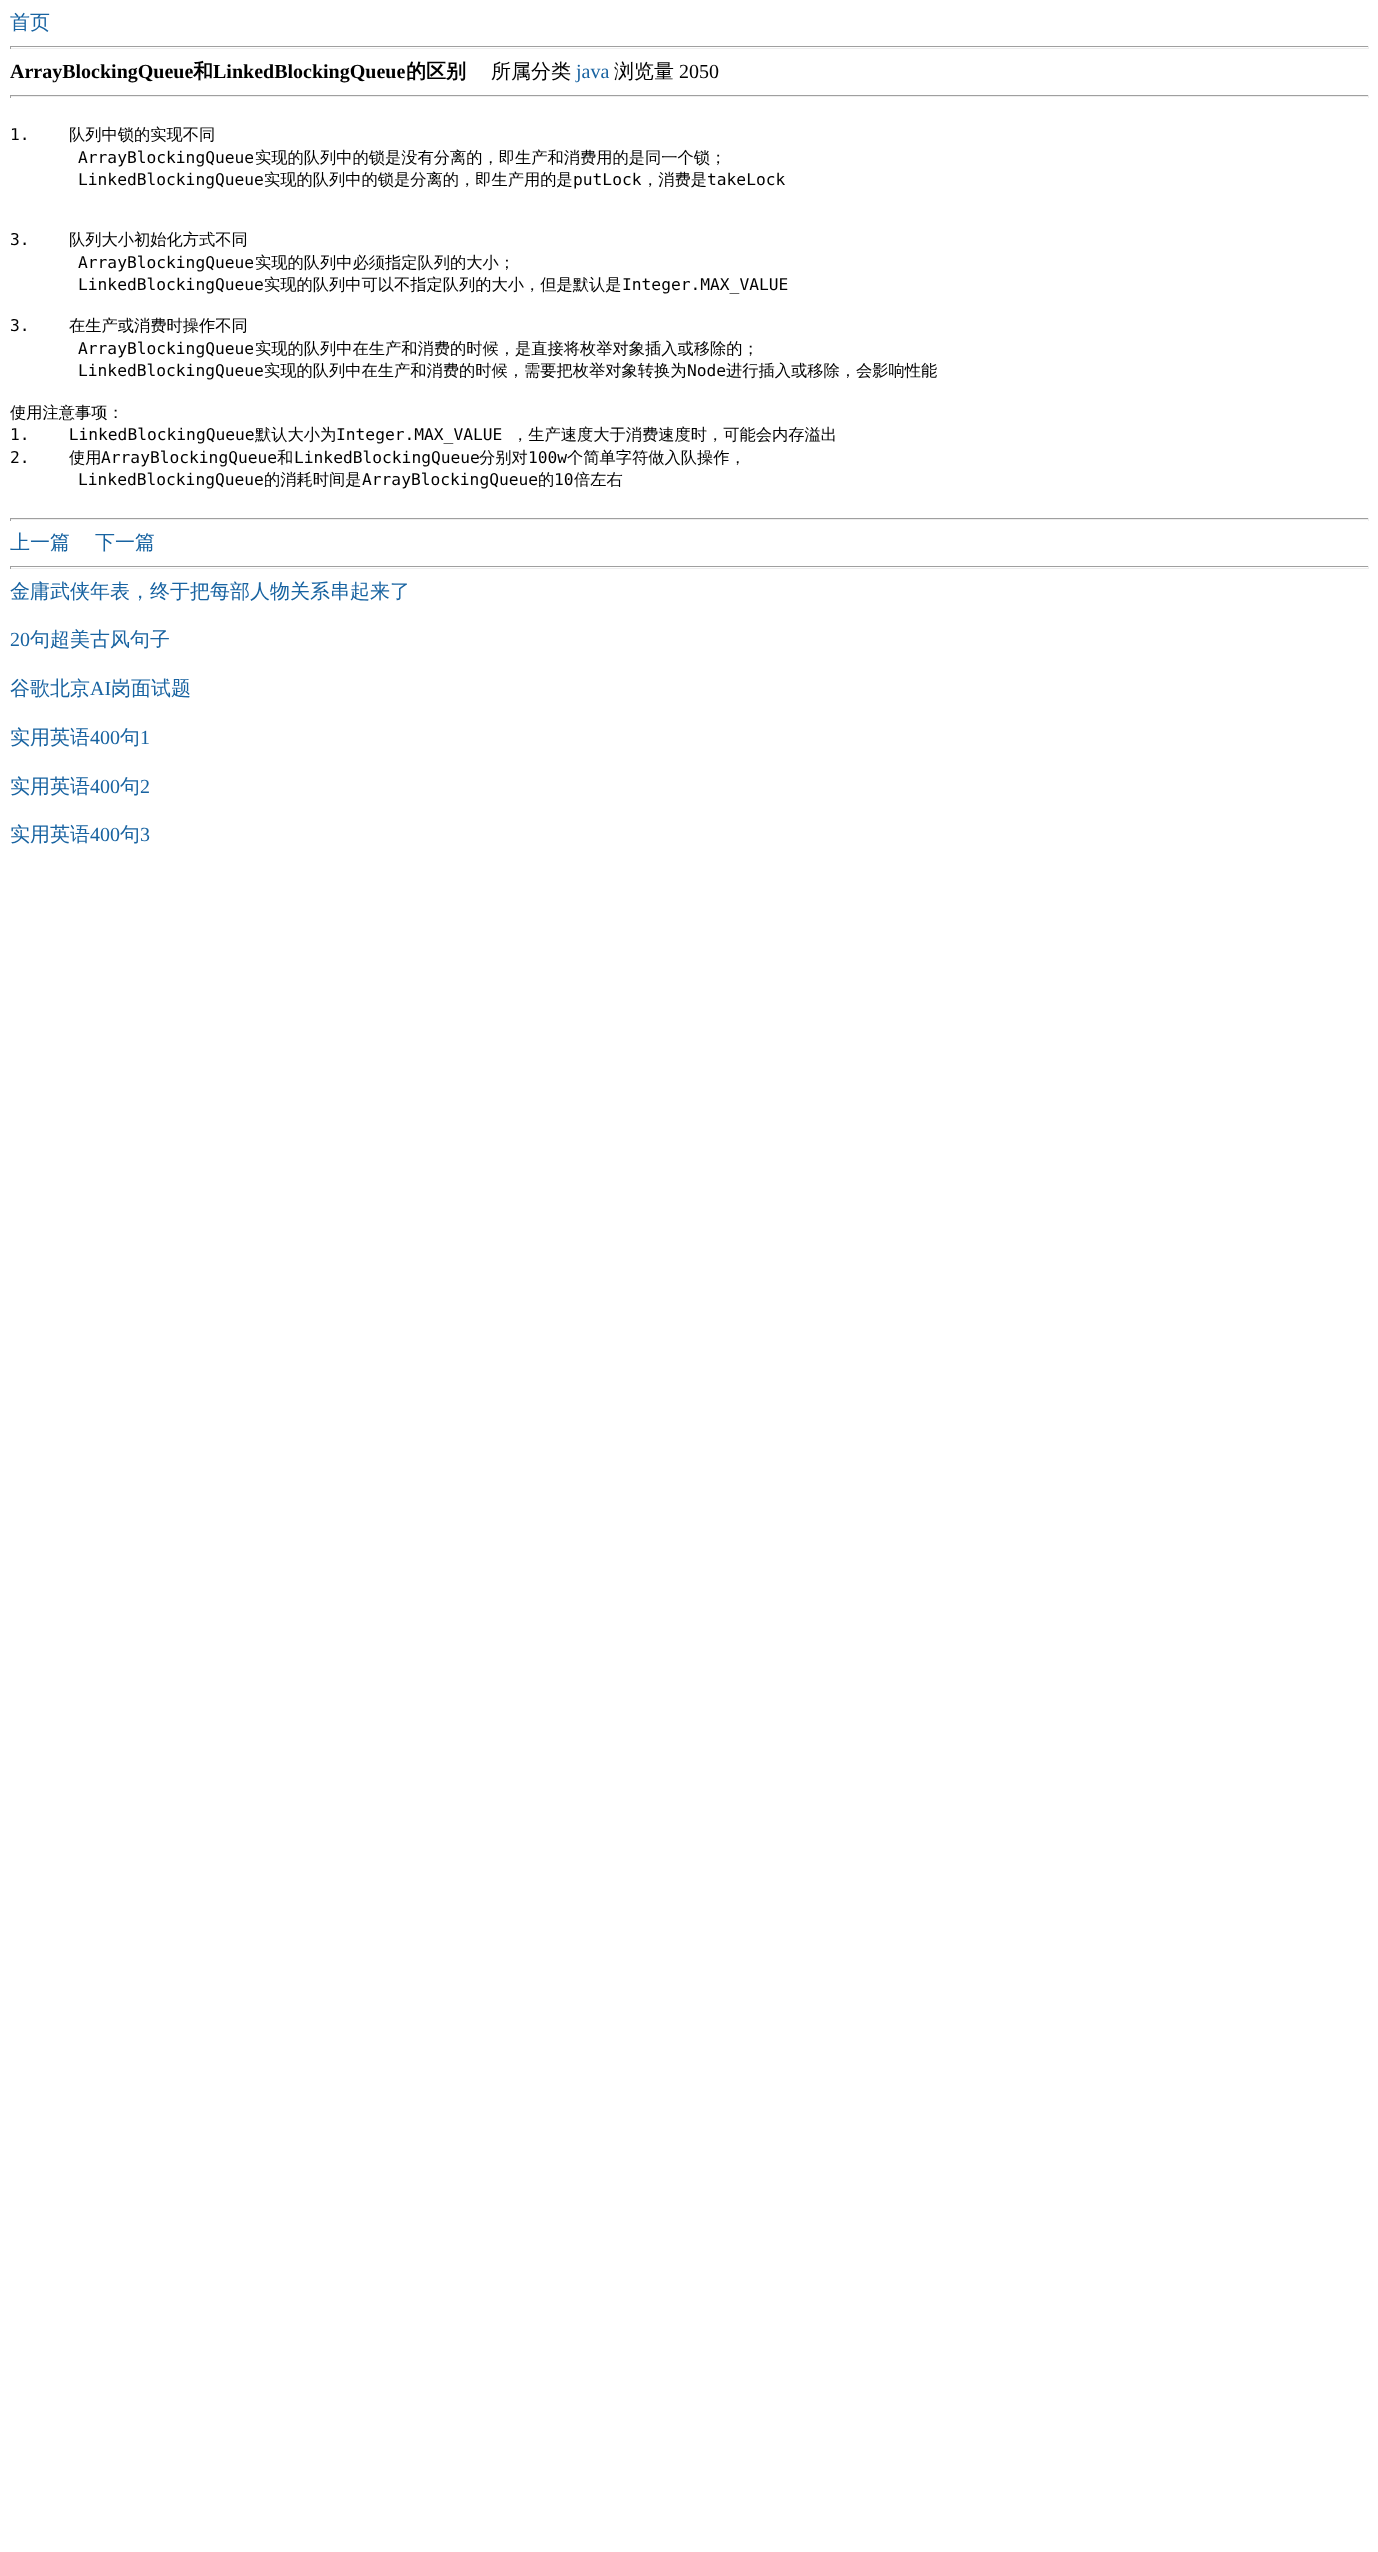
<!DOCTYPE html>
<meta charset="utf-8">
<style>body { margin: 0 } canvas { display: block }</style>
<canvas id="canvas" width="1378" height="2552"></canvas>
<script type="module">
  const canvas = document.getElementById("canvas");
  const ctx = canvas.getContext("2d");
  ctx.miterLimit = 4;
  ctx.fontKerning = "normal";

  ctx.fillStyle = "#ffffff";
  ctx.fillRect(0, 0, 1378, 2552);
  ctx.font = "500 20px WenQuanYi Zen Hei";
  ctx.fillStyle = "#1863a1";
  ctx.fillText("首页", 10, 29);
  ctx.fillStyle = "#9f9f9f";
  ctx.fillRect(10, 46, 1359, 1);
  ctx.fillStyle = "#eeeeee";
  ctx.fillRect(1368, 46, 1, 3);
  ctx.fillRect(10, 48, 1359, 1);
  ctx.fillStyle = "#9f9f9f";
  ctx.fillRect(10, 46, 1, 3);
  ctx.font = "bold 20px Liberation Serif";
  ctx.fillStyle = "#000000";
  ctx.fillText("ArrayBlockingQueue", 10, 78);
  ctx.font = "bold 20px WenQuanYi Zen Hei";
  ctx.fillText("和", 193, 78);
  ctx.font = "bold 20px Liberation Serif";
  ctx.fillText("LinkedBlockingQueue", 213, 78);
  ctx.font = "bold 20px WenQuanYi Zen Hei";
  ctx.fillText("的区别", 406, 78);
  ctx.font = "500 20px WenQuanYi Zen Hei";
  ctx.fillText("所属分类", 491, 78);
  ctx.font = "20px Liberation Serif";
  ctx.fillStyle = "#1863a1";
  ctx.fillText("java", 576, 78);
  ctx.font = "500 20px WenQuanYi Zen Hei";
  ctx.fillStyle = "#000000";
  ctx.fillText("浏览量", 614, 78);
  ctx.font = "20px Liberation Serif";
  ctx.fillText("2050", 679, 78);
  ctx.fillStyle = "#9f9f9f";
  ctx.fillRect(10, 95, 1359, 1);
  ctx.fillStyle = "#eeeeee";
  ctx.fillRect(1368, 95, 1, 3);
  ctx.fillRect(10, 96, 1359, 1);
  ctx.fillStyle = "#9f9f9f";
  ctx.fillRect(10, 95, 1, 3);
  ctx.font = "16.25px DejaVu Sans Mono";
  ctx.fillStyle = "#000000";
  ctx.fillText("1.", 10, 140);
  ctx.font = "500 16.25px WenQuanYi Zen Hei";
  ctx.fillText("队列中锁的实现不同", 69, 140);
  ctx.font = "16.25px DejaVu Sans Mono";
  ctx.fillText("ArrayBlockingQueue", 78, 163);
  ctx.font = "500 16.25px WenQuanYi Zen Hei";
  ctx.fillText("实现的队列中的锁是没有分离的，即生产和消费用的是同一个锁；", 255, 163);
  ctx.font = "16.25px DejaVu Sans Mono";
  ctx.fillText("LinkedBlockingQueue", 78, 185);
  ctx.font = "500 16.25px WenQuanYi Zen Hei";
  ctx.fillText("实现的队列中的锁是分离的，即生产用的是", 264, 185);
  ctx.font = "16.25px DejaVu Sans Mono";
  ctx.fillText("putLock", 573, 185);
  ctx.font = "500 16.25px WenQuanYi Zen Hei";
  ctx.fillText("，消费是", 642, 185);
  ctx.font = "16.25px DejaVu Sans Mono";
  ctx.fillText("takeLock", 707, 185);
  ctx.fillText("3.", 10, 245);
  ctx.font = "500 16.25px WenQuanYi Zen Hei";
  ctx.fillText("队列大小初始化方式不同", 69, 245);
  ctx.font = "16.25px DejaVu Sans Mono";
  ctx.fillText("ArrayBlockingQueue", 78, 268);
  ctx.font = "500 16.25px WenQuanYi Zen Hei";
  ctx.fillText("实现的队列中必须指定队列的大小；", 255, 268);
  ctx.font = "16.25px DejaVu Sans Mono";
  ctx.fillText("LinkedBlockingQueue", 78, 290);
  ctx.font = "500 16.25px WenQuanYi Zen Hei";
  ctx.fillText("实现的队列中可以不指定队列的大小，但是默认是", 264, 290);
  ctx.font = "16.25px DejaVu Sans Mono";
  ctx.fillText("Integer.MAX_VALUE", 622, 290);
  ctx.fillText("3.", 10, 331);
  ctx.font = "500 16.25px WenQuanYi Zen Hei";
  ctx.fillText("在生产或消费时操作不同", 69, 331);
  ctx.font = "16.25px DejaVu Sans Mono";
  ctx.fillText("ArrayBlockingQueue", 78, 354);
  ctx.font = "500 16.25px WenQuanYi Zen Hei";
  ctx.fillText("实现的队列中在生产和消费的时候，是直接将枚举对象插入或移除的；", 255, 354);
  ctx.font = "16.25px DejaVu Sans Mono";
  ctx.fillText("LinkedBlockingQueue", 78, 376);
  ctx.font = "500 16.25px WenQuanYi Zen Hei";
  ctx.fillText("实现的队列中在生产和消费的时候，需要把枚举对象转换为", 264, 376);
  ctx.font = "16.25px DejaVu Sans Mono";
  ctx.fillText("Node", 687, 376);
  ctx.font = "500 16.25px WenQuanYi Zen Hei";
  ctx.fillText("进行插入或移除，会影响性能", 726, 376);
  ctx.fillText("使用注意事项：", 10, 418);
  ctx.font = "16.25px DejaVu Sans Mono";
  ctx.fillText("1.    LinkedBlockingQueue", 10, 440);
  ctx.font = "500 16.25px WenQuanYi Zen Hei";
  ctx.fillText("默认大小为", 255, 440);
  ctx.font = "16.25px DejaVu Sans Mono";
  ctx.fillText("Integer.MAX_VALUE", 336, 440);
  ctx.font = "500 16.25px WenQuanYi Zen Hei";
  ctx.fillText("，生产速度大于消费速度时，可能会内存溢出", 512, 440);
  ctx.font = "16.25px DejaVu Sans Mono";
  ctx.fillText("2.", 10, 463);
  ctx.font = "500 16.25px WenQuanYi Zen Hei";
  ctx.fillText("使用", 69, 463);
  ctx.font = "16.25px DejaVu Sans Mono";
  ctx.fillText("ArrayBlockingQueue", 101, 463);
  ctx.font = "500 16.25px WenQuanYi Zen Hei";
  ctx.fillText("和", 277, 463);
  ctx.font = "16.25px DejaVu Sans Mono";
  ctx.fillText("LinkedBlockingQueue", 294, 463);
  ctx.font = "500 16.25px WenQuanYi Zen Hei";
  ctx.fillText("分别对", 479, 463);
  ctx.font = "16.25px DejaVu Sans Mono";
  ctx.fillText("100w", 528, 463);
  ctx.font = "500 16.25px WenQuanYi Zen Hei";
  ctx.fillText("个简单字符做入队操作，", 567, 463);
  ctx.font = "16.25px DejaVu Sans Mono";
  ctx.fillText("LinkedBlockingQueue", 78, 485);
  ctx.font = "500 16.25px WenQuanYi Zen Hei";
  ctx.fillText("的消耗时间是", 264, 485);
  ctx.font = "16.25px DejaVu Sans Mono";
  ctx.fillText("ArrayBlockingQueue", 362, 485);
  ctx.font = "500 16.25px WenQuanYi Zen Hei";
  ctx.fillText("的", 538, 485);
  ctx.font = "16.25px DejaVu Sans Mono";
  ctx.fillText("10", 554, 485);
  ctx.font = "500 16.25px WenQuanYi Zen Hei";
  ctx.fillText("倍左右", 574, 485);
  ctx.fillStyle = "#9f9f9f";
  ctx.fillRect(10, 518, 1359, 1);
  ctx.fillStyle = "#eeeeee";
  ctx.fillRect(1368, 518, 1, 3);
  ctx.fillRect(10, 519, 1359, 1);
  ctx.fillStyle = "#9f9f9f";
  ctx.fillRect(10, 518, 1, 3);
  ctx.font = "500 20px WenQuanYi Zen Hei";
  ctx.fillStyle = "#1863a1";
  ctx.fillText("上一篇", 10, 549);
  ctx.fillText("下一篇", 95, 549);
  ctx.fillStyle = "#9f9f9f";
  ctx.fillRect(10, 566, 1359, 1);
  ctx.fillStyle = "#eeeeee";
  ctx.fillRect(1368, 566, 1, 3);
  ctx.fillRect(10, 568, 1359, 1);
  ctx.fillStyle = "#9f9f9f";
  ctx.fillRect(10, 566, 1, 3);
  ctx.fillStyle = "#1863a1";
  ctx.fillText("金庸武侠年表，终于把每部人物关系串起来了", 10, 598);
  ctx.font = "20px Liberation Serif";
  ctx.fillText("20", 10, 646);
  ctx.font = "500 20px WenQuanYi Zen Hei";
  ctx.fillText("句超美古风句子", 30, 646);
  ctx.fillText("谷歌北京", 10, 695);
  ctx.font = "20px Liberation Serif";
  ctx.fillText("AI", 90, 695);
  ctx.font = "500 20px WenQuanYi Zen Hei";
  ctx.fillText("岗面试题", 111, 695);
  ctx.fillText("实用英语", 10, 744);
  ctx.font = "20px Liberation Serif";
  ctx.fillText("400", 90, 744);
  ctx.font = "500 20px WenQuanYi Zen Hei";
  ctx.fillText("句", 120, 744);
  ctx.font = "20px Liberation Serif";
  ctx.fillText("1", 140, 744);
  ctx.font = "500 20px WenQuanYi Zen Hei";
  ctx.fillText("实用英语", 10, 793);
  ctx.font = "20px Liberation Serif";
  ctx.fillText("400", 90, 793);
  ctx.font = "500 20px WenQuanYi Zen Hei";
  ctx.fillText("句", 120, 793);
  ctx.font = "20px Liberation Serif";
  ctx.fillText("2", 140, 793);
  ctx.font = "500 20px WenQuanYi Zen Hei";
  ctx.fillText("实用英语", 10, 841);
  ctx.font = "20px Liberation Serif";
  ctx.fillText("400", 90, 841);
  ctx.font = "500 20px WenQuanYi Zen Hei";
  ctx.fillText("句", 120, 841);
  ctx.font = "20px Liberation Serif";
  ctx.fillText("3", 140, 841);
</script>
